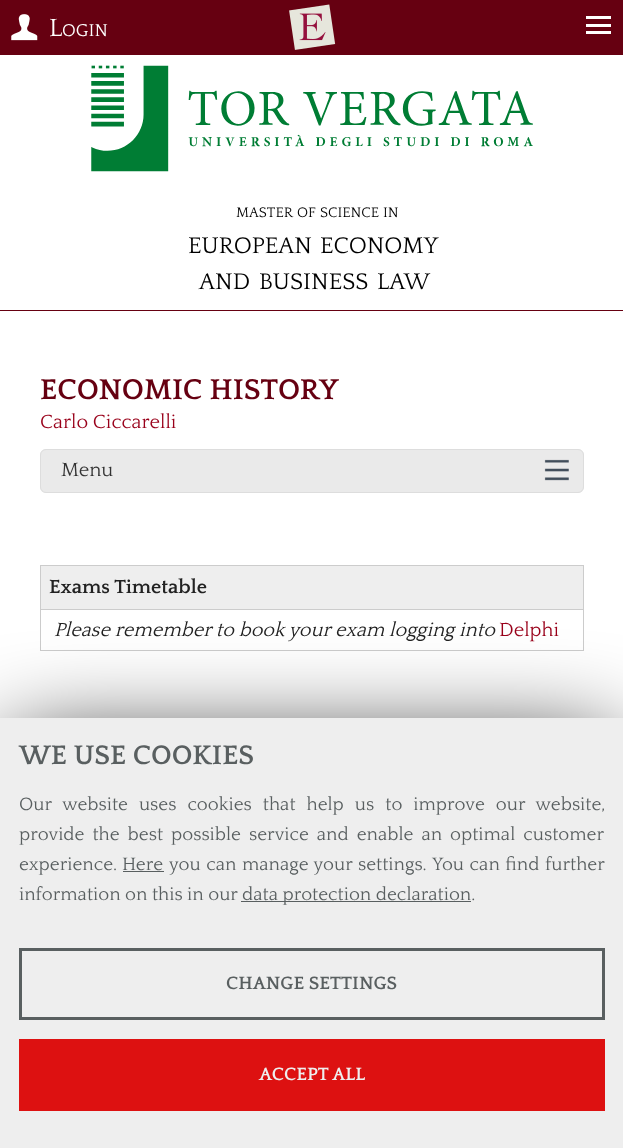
<!DOCTYPE html>
<meta charset="utf-8">
<style>body { margin: 0 } canvas { display: block }</style>
<canvas id="canvas" width="623" height="1148"></canvas>
<script type="module">
  const canvas = document.getElementById("canvas");
  const ctx = canvas.getContext("2d");
  ctx.miterLimit = 4;
  ctx.fontKerning = "normal";
  async function loadImage(src) {
    const img = new Image();
    img.src = src;
    await img.decode();
    return img;
  }

  ctx.fillStyle = "#ffffff";
  ctx.fillRect(0, 0, 623, 1148);
  ctx.fillStyle = "#660011";
  ctx.fillRect(0, 310, 623, 1);
  ctx.fillRect(0, 0, 623, 55);
  ctx.drawImage(await loadImage("img1.png"), 11, 14, 27, 27);
  ctx.font = "26px Quattrocento";
  ctx.fillStyle = "#ffffff";
  ctx.fillText("L", 49, 36);
  ctx.font = "18px Quattrocento";
  ctx.fillText("OGIN", 62, 36);
  ctx.drawImage(await loadImage("img2.png"), 289, 4, 47, 46);
  ctx.fillRect(586, 16, 25, 3);
  ctx.fillRect(586, 24, 25, 3);
  ctx.fillRect(586, 31, 25, 3);
  ctx.drawImage(await loadImage("img3.png"), 91, 65, 442, 107);
  ctx.font = "14.5px Quattrocento";
  ctx.fillStyle = "#000000";
  ctx.fillText("MASTER", 236, 217);
  ctx.fillText("OF", 297, 217);
  ctx.fillText("SCIENCE", 320, 217);
  ctx.fillText("IN", 383, 217);
  ctx.font = "23.75px Quattrocento";
  ctx.fillText("EUROPEAN", 188, 253);
  ctx.fillText("ECONOMY", 320, 253);
  ctx.fillText("AND", 199, 289);
  ctx.fillText("BUSINESS", 259, 289);
  ctx.fillText("LAW", 377, 289);
  ctx.font = "bold 30px Quattrocento";
  ctx.fillStyle = "#660011";
  ctx.fillText("ECONOMIC HISTORY", 40, 399);
  ctx.font = "20px Quattrocento";
  ctx.fillStyle = "#99001a";
  ctx.fillText("Carlo Ciccarelli", 40, 428);
  ctx.fillStyle = "#eaeaea";
  ctx.beginPath();
  ctx.roundRect(40, 449, 544, 44, 6);
  ctx.fill();
  ctx.drawImage(await loadImage("img4.png"), 544, 459, 25, 22);
  ctx.beginPath();
  ctx.roundRect(40.5, 449.5, 543, 43, 5.5);
  ctx.strokeStyle = "#dddddd";
  ctx.stroke();
  ctx.fillStyle = "#333333";
  ctx.fillText("Menu", 61, 476);
  ctx.fillStyle = "#cccccc";
  ctx.fillRect(40, 565, 544, 1);
  ctx.fillRect(583, 565, 1, 86);
  ctx.fillRect(40, 565, 1, 86);
  ctx.fillStyle = "#eeeeee";
  ctx.fillRect(41, 566, 542, 43);
  ctx.fillStyle = "#cccccc";
  ctx.fillRect(41, 609, 542, 1);
  ctx.font = "bold 20px Quattrocento";
  ctx.fillStyle = "#222222";
  ctx.fillText("Exams Timetable", 49, 593);
  ctx.fillStyle = "#cccccc";
  ctx.fillRect(41, 650, 542, 1);
  ctx.font = "italic 20px Quattrocento";
  ctx.fillStyle = "#222222";
  ctx.fillText("Please remember to book your exam logging into", 54, 636);
  ctx.font = "20px Quattrocento";
  ctx.fillStyle = "#99001a";
  ctx.fillText("Delphi", 499, 636);
  ctx.fillStyle = "#000000";
  ctx.filter = "blur(50px)";
  ctx.beginPath();
  ctx.rect(10, 748, 604, 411);
  ctx.fill();
  ctx.filter = "none";
  ctx.fillStyle = "#eeeeee";
  ctx.fillRect(0, 718, 623, 430);
  ctx.font = "bold 28.1px Quattrocento";
  ctx.fillStyle = "#595f60";
  ctx.fillText("WE USE COOKIES", 19, 764);
  ctx.wordSpacing = "6.5px";
  ctx.font = "18.75px Quattrocento";
  ctx.fillText("Our website uses cookies that help us to improve our website,", 19, 810);
  ctx.wordSpacing = "3.5px";
  ctx.fillText("provide the best possible service and enable an optimal customer", 19, 840);
  ctx.wordSpacing = "0px";
  ctx.fillText("experience.", 19, 870);
  ctx.fillText("Here", 122, 870);
  ctx.fillRect(123, 871, 41, 1);
  ctx.wordSpacing = "1px";
  ctx.fillText("you can manage your settings.", 169, 870);
  ctx.fillText("You can find further", 432, 870);
  ctx.wordSpacing = "0px";
  ctx.fillText("information on this in our", 19, 900);
  ctx.fillRect(241, 901, 230, 1);
  ctx.fillText("data protection declaration.", 242, 900);
  ctx.strokeStyle = "#595f60";
  ctx.lineWidth = 3;
  ctx.strokeRect(20.5, 949.5, 583, 69);
  ctx.font = "bold 18.75px Quattrocento";
  ctx.fillText("CHANGE SETTINGS", 226, 989);
  ctx.fillStyle = "#dd1111";
  ctx.fillRect(19, 1039, 586, 72);
  ctx.fillStyle = "#eeeeee";
  ctx.fillText("ACCEPT ALL", 259, 1080);
</script>
